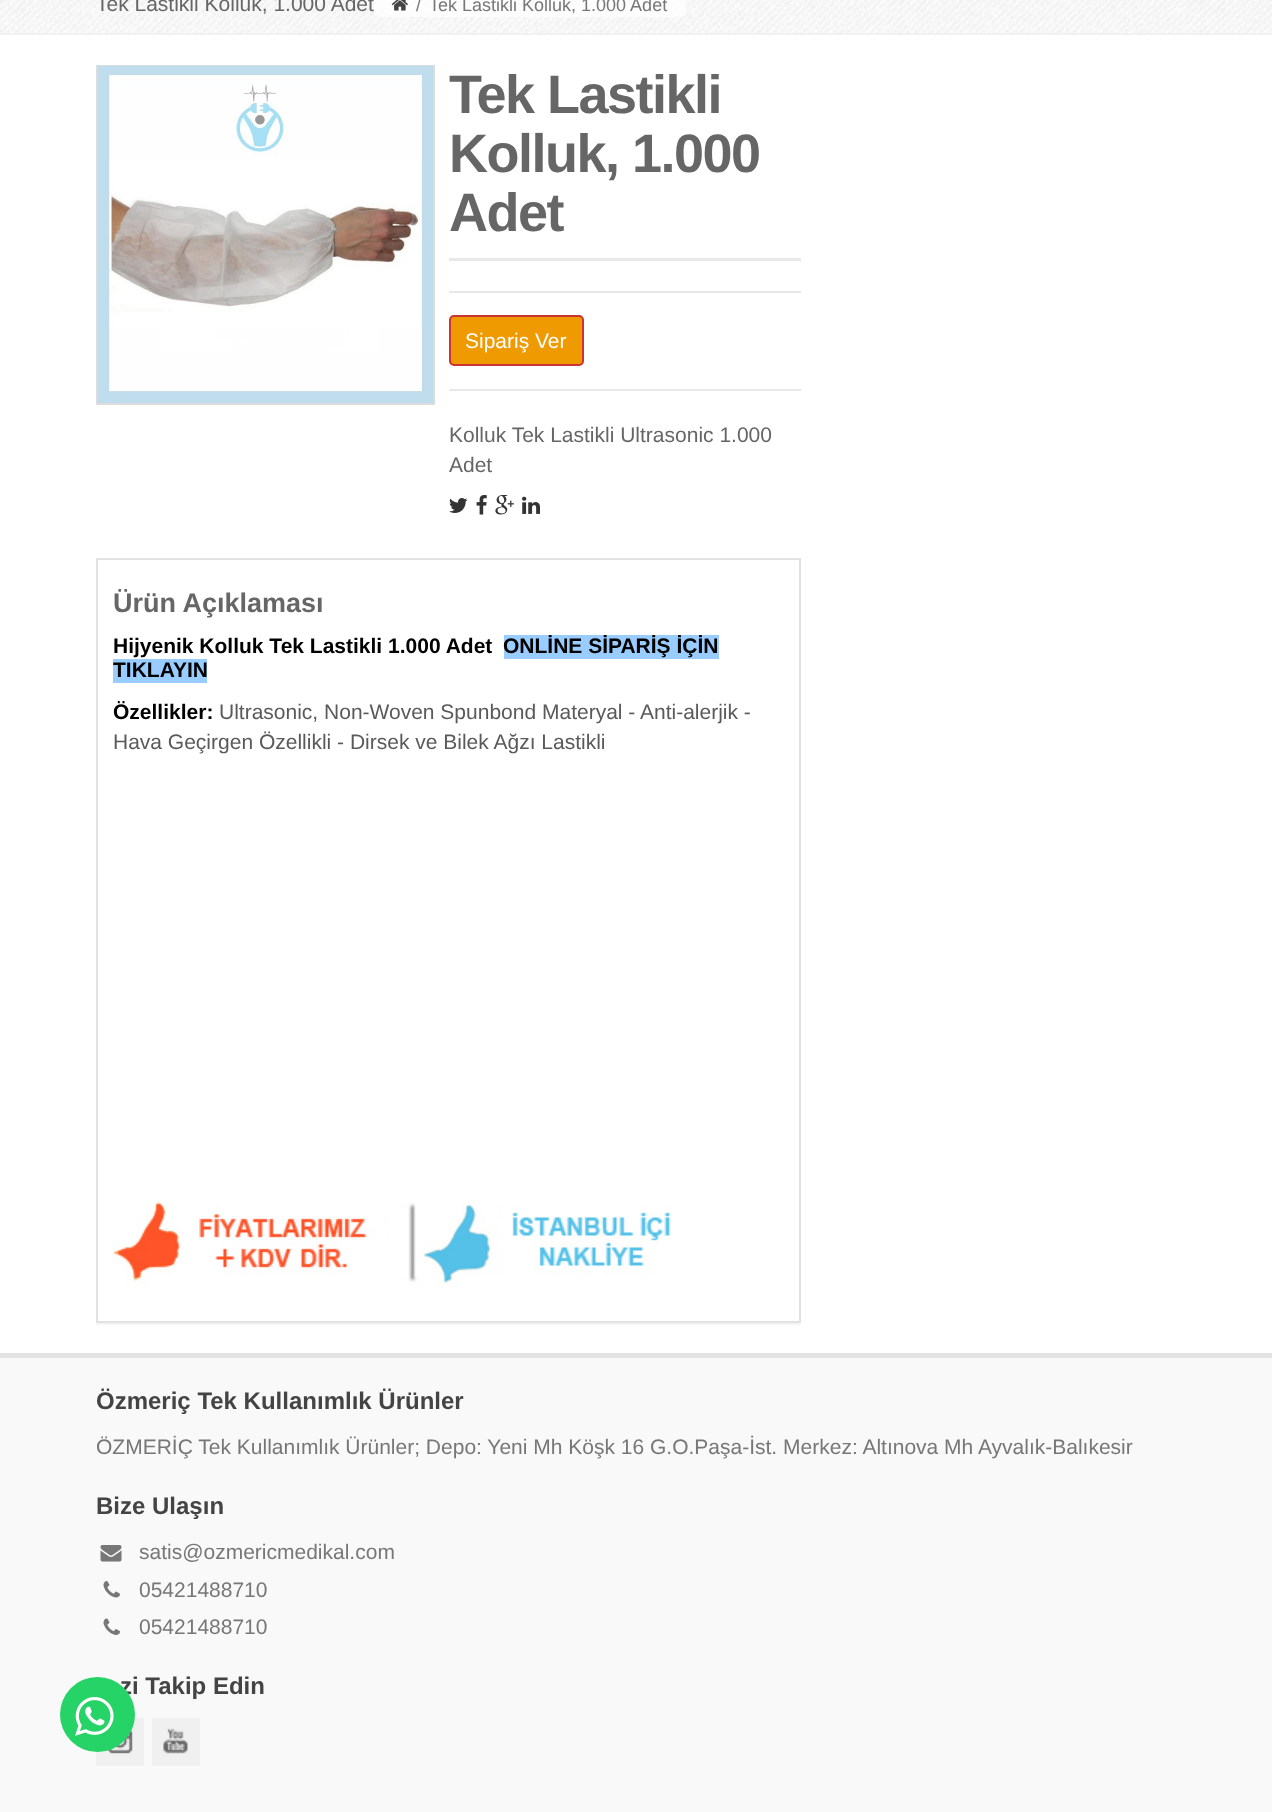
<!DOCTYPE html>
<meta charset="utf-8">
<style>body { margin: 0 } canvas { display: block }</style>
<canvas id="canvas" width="1272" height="1812"></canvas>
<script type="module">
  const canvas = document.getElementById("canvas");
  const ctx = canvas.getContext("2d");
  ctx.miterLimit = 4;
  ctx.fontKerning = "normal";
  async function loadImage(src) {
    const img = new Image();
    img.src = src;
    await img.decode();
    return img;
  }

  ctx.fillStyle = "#ffffff";
  ctx.fillRect(0, 0, 1272, 1812);
  ctx.drawImage(await loadImage("img1.png"), 0, 0, 1272, 33);
  ctx.fillStyle = "#f2f2f2";
  ctx.fillRect(0, 33, 1272, 2);
  ctx.font = "21px Liberation Sans";
  ctx.fillStyle = "#666666";
  ctx.fillText("Tek Lastikli Kolluk, 1.000 Adet", 96, 11);
  ctx.fillStyle = "rgba(255, 255, 255, 0.7)";
  ctx.beginPath();
  ctx.roundRect(374, -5, 312, 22, 5);
  ctx.fill();
  ctx.drawImage(await loadImage("img2.png"), 391, 0, 17, 11);
  ctx.font = "18px Liberation Sans";
  ctx.fillStyle = "#777777";
  ctx.fillText("/", 416, 11);
  ctx.fillText("Tek Lastikli Kolluk, 1.000 Adet", 429, 11);
  ctx.strokeStyle = "#dddddd";
  ctx.lineWidth = 2;
  ctx.strokeRect(97, 66, 337, 338);
  ctx.drawImage(await loadImage("img3.png"), 97, 65, 337, 338);
  ctx.fillStyle = "#e8e8e8";
  ctx.fillRect(449, 258, 352, 3);
  ctx.letterSpacing = "-1.5px";
  ctx.font = "bold 54px Liberation Sans";
  ctx.fillStyle = "#666666";
  ctx.fillText("Tek Lastikli", 449, 113);
  ctx.fillText("Kolluk, 1.000", 449, 172);
  ctx.fillText("Adet", 449, 231);
  ctx.fillStyle = "#e8e8e8";
  ctx.fillRect(449, 291, 352, 2);
  ctx.fillRect(449, 389, 352, 2);
  ctx.fillStyle = "#ee9a00";
  ctx.beginPath();
  ctx.roundRect(450, 316, 133, 49, 4);
  ctx.fill();
  ctx.strokeStyle = "#cc3333";
  ctx.stroke();
  ctx.letterSpacing = "0px";
  ctx.font = "21px Liberation Sans";
  ctx.fillStyle = "#ffffff";
  ctx.fillText("Sipariş Ver", 465, 348);
  ctx.fillStyle = "#666666";
  ctx.fillText("Kolluk Tek Lastikli Ultrasonic 1.000", 449, 442);
  ctx.fillText("Adet", 449, 472);
  ctx.drawImage(await loadImage("img4.png"), 449, 498, 19, 15);
  ctx.drawImage(await loadImage("img5.png"), 476, 495, 11, 20);
  ctx.drawImage(await loadImage("img6.png"), 495, 495, 19, 20);
  ctx.drawImage(await loadImage("img7.png"), 522, 496, 18, 18);
  ctx.save();
  ctx.beginPath();
  ctx.rect(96, 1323, 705, 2);
  ctx.clip();
  ctx.fillStyle = "rgba(0, 0, 0, 0.05)";
  ctx.filter = "blur(1px)";
  ctx.beginPath();
  ctx.rect(96, 560, 705, 765);
  ctx.fill();
  ctx.filter = "none";
  ctx.restore();
  ctx.strokeStyle = "#e2e2e2";
  ctx.strokeRect(97, 559, 703, 763);
  ctx.font = "bold 27px Liberation Sans";
  ctx.fillText("Ürün Açıklaması", 113, 612);
  ctx.font = "bold 21px Liberation Sans";
  ctx.fillStyle = "#000000";
  ctx.fillText("Hijyenik Kolluk Tek Lastikli 1.000 Adet", 113, 653);
  ctx.fillStyle = "#99ccff";
  ctx.fillRect(504, 635, 215, 24);
  ctx.fillStyle = "#000000";
  ctx.fillText("ONLİNE SİPARİŞ İÇİN", 503, 653);
  ctx.fillStyle = "#99ccff";
  ctx.fillRect(113, 659, 94, 24);
  ctx.fillStyle = "#000000";
  ctx.fillText("TIKLAYIN", 113, 677);
  ctx.fillText("Özellikler:", 113, 719);
  ctx.font = "21px Liberation Sans";
  ctx.fillStyle = "#5a5a5a";
  ctx.fillText("Ultrasonic, Non-Woven Spunbond Materyal - Anti-alerjik -", 219, 719);
  ctx.fillText("Hava Geçirgen Özellikli - Dirsek ve Bilek Ağzı Lastikli", 113, 749);
  ctx.drawImage(await loadImage("img8.png"), 112, 1200, 559, 88);
  ctx.fillStyle = "#f9f9f9";
  ctx.fillRect(0, 1358, 1272, 454);
  ctx.fillStyle = "#e3e3e3";
  ctx.fillRect(0, 1353, 1272, 5);
  ctx.font = "bold 24px Liberation Sans";
  ctx.fillStyle = "#444444";
  ctx.fillText("Özmeriç Tek Kullanımlık Ürünler", 96, 1409);
  ctx.font = "21px Liberation Sans";
  ctx.fillStyle = "#777777";
  ctx.fillText("ÖZMERİÇ Tek Kullanımlık Ürünler; Depo: Yeni Mh Köşk 16 G.O.Paşa-İst. Merkez: Altınova Mh Ayvalık-Balıkesir", 96, 1454);
  ctx.font = "bold 24px Liberation Sans";
  ctx.fillStyle = "#444444";
  ctx.fillText("Bize Ulaşın", 96, 1514);
  ctx.drawImage(await loadImage("img9.png"), 100, 1545, 22, 17);
  ctx.font = "21px Liberation Sans";
  ctx.fillStyle = "#777777";
  ctx.fillText("satis@ozmericmedikal.com", 139, 1559);
  ctx.drawImage(await loadImage("img10.png"), 103, 1581, 17, 17);
  ctx.fillText("05421488710", 139, 1597);
  ctx.drawImage(await loadImage("img11.png"), 103, 1618, 17, 17);
  ctx.fillText("05421488710", 139, 1634);
  ctx.font = "bold 24px Liberation Sans";
  ctx.fillStyle = "#444444";
  ctx.fillText("zi Takip Edin", 120, 1694);
  ctx.fillStyle = "#f0f0f0";
  ctx.fillRect(96, 1718, 48, 48);
  ctx.drawImage(await loadImage("img12.png"), 107, 1730, 26, 24);
  ctx.fillRect(152, 1718, 48, 48);
  ctx.drawImage(await loadImage("img13.png"), 163, 1728, 25, 26);
  ctx.fillStyle = "#25d366";
  ctx.beginPath();
  ctx.arc(97.5, 1714.5, 37.5, 0, Math.PI * 2);
  ctx.fill();
  ctx.drawImage(await loadImage("img14.png"), 75, 1697, 39, 39);
</script>
